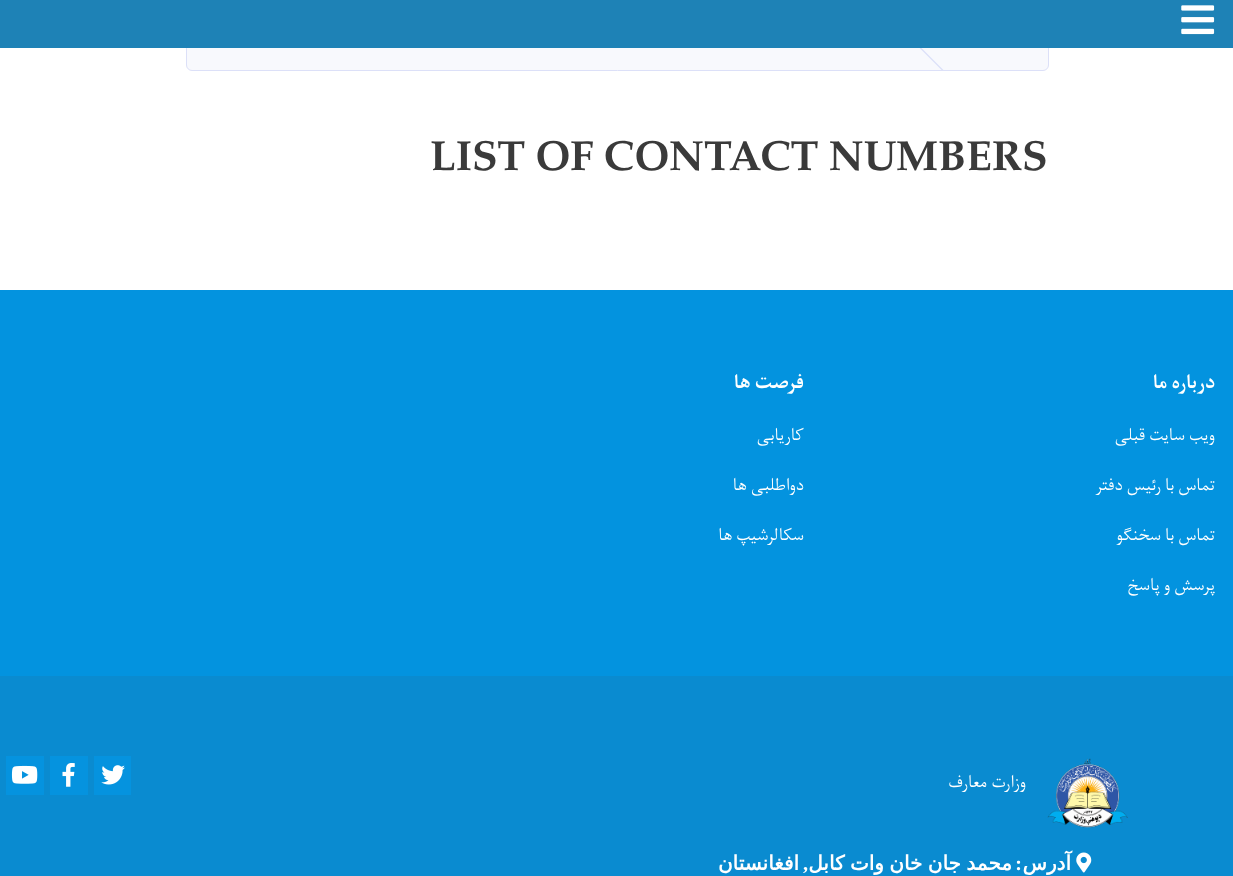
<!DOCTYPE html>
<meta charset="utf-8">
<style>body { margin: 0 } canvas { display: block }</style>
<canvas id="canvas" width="1233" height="876"></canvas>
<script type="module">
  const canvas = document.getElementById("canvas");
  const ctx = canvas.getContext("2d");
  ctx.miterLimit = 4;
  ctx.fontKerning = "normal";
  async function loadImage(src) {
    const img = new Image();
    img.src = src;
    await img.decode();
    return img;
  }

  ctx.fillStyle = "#ffffff";
  ctx.fillRect(0, 0, 1233, 876);
  ctx.fillStyle = "#f8f9fd";
  ctx.beginPath();
  ctx.roundRect(186.5, 24.5, 862, 46, 5.5);
  ctx.fill();
  ctx.strokeStyle = "#dce0f8";
  ctx.stroke();
  ctx.save();
  ctx.beginPath();
  ctx.rect(719, 25, 225, 45);
  ctx.clip();
  ctx.beginPath();
  ctx.moveTo(959.5, 9);
  ctx.lineTo(998.5, 48);
  ctx.lineTo(959.5, 87);
  ctx.lineTo(920.5, 48);
  ctx.closePath();
  ctx.lineWidth = 1.3;
  ctx.stroke();
  ctx.restore();
  ctx.fillStyle = "#1e82b6";
  ctx.fillRect(0, 0, 1233, 48);
  ctx.drawImage(await loadImage("img1.png"), 1181, 5, 34, 30);
  ctx.font = "bold 52.5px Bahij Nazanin";
  ctx.fillStyle = "#3a3a3a";
  ctx.fillText("LIST OF CONTACT NUMBERS", 430, 170);
  ctx.fillStyle = "#0393df";
  ctx.fillRect(0, 290, 1233, 386);
  ctx.direction = "rtl";
  ctx.font = "bold 22.5px Bahij Nazanin";
  ctx.fillStyle = "#ffffff";
  ctx.fillText("درباره ما", 1215, 388);
  ctx.font = "20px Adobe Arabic";
  ctx.fillText("ویب سایت قبلی", 1215, 440);
  ctx.fillText("تماس با رئیس دفتر", 1215, 490);
  ctx.fillText("تماس با سخنگو", 1215, 540);
  ctx.fillText("پرسش و پاسخ", 1215, 590);
  ctx.font = "bold 22.5px Bahij Nazanin";
  ctx.fillText("فرصت ها", 804, 388);
  ctx.font = "20px Adobe Arabic";
  ctx.fillText("کاریابی", 804, 440);
  ctx.fillText("دواطلبی ها", 804, 490);
  ctx.fillText("سکالرشیپ ها", 804, 540);
  ctx.fillStyle = "#0a8bd0";
  ctx.fillRect(0, 676, 1233, 200);
  ctx.drawImage(await loadImage("img2.png"), 1047, 758, 81, 70);
  ctx.fillStyle = "#ffffff";
  ctx.fillText("وزارت", 1026, 787);
  ctx.fillText("معارف", 987, 787);
  ctx.fillStyle = "#0593df";
  ctx.fillRect(94, 756, 37, 39);
  ctx.drawImage(await loadImage("img3.png"), 101, 765, 24, 20);
  ctx.fillRect(50, 756, 38, 39);
  ctx.drawImage(await loadImage("img4.png"), 62, 763, 13, 24);
  ctx.fillRect(6, 756, 38, 39);
  ctx.drawImage(await loadImage("img5.png"), 11, 765, 27, 19);
  ctx.drawImage(await loadImage("img6.png"), 1076, 852, 16, 21);
  ctx.font = "bold 20px DejaVu Sans";
  ctx.fillStyle = "#ffffff";
  ctx.fillText("آدرس", 1071, 870);
  ctx.font = "bold 20px Liberation Serif";
  ctx.fillText(":", 1022, 870);
  ctx.wordSpacing = "-1px";
  ctx.font = "bold 20px DejaVu Sans";
  ctx.fillText("محمد جان خان وات کابل", 1012, 870);
  ctx.wordSpacing = "0px";
  ctx.font = "bold 20px Liberation Serif";
  ctx.fillText(",", 808, 870);
  ctx.font = "bold 20px DejaVu Sans";
  ctx.fillText("افغانستان", 799, 870);
</script>
